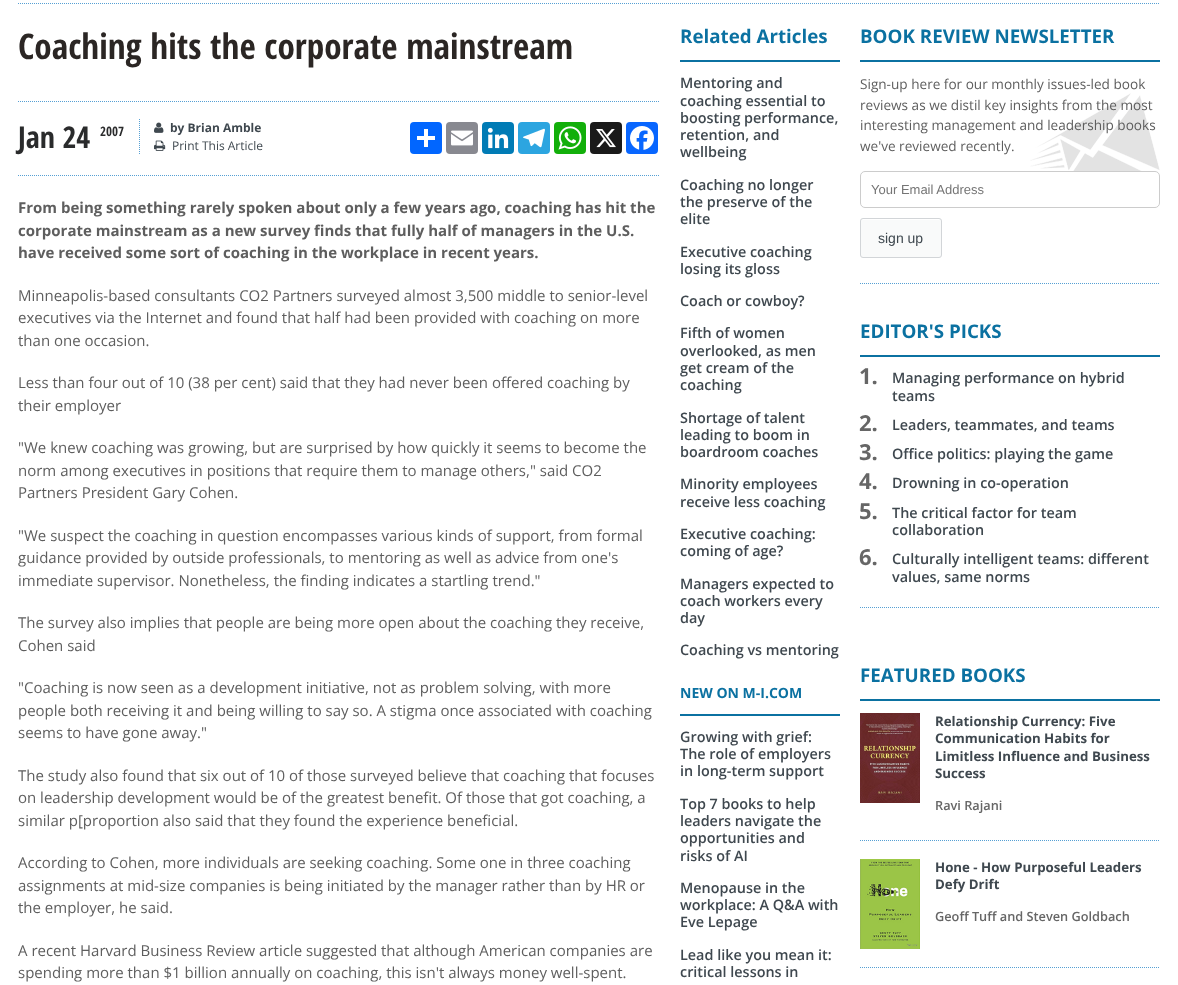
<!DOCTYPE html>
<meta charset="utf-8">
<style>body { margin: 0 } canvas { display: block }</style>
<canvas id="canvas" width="1178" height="985"></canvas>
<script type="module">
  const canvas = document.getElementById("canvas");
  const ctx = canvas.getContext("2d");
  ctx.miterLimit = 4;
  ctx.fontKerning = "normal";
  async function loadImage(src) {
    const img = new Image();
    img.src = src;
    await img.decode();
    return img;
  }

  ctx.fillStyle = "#ffffff";
  ctx.fillRect(0, 0, 1178, 985);
  ctx.beginPath();
  ctx.moveTo(18, 3.5);
  ctx.lineTo(1160, 3.5);
  ctx.strokeStyle = "#56a0d4";
  ctx.setLineDash([1, 1]);
  ctx.stroke();
  ctx.beginPath();
  ctx.moveTo(18, 175.5);
  ctx.lineTo(660, 175.5);
  ctx.stroke();
  ctx.font = "bold 35.25px Open Sans Condensed";
  ctx.fillStyle = "#2b2624";
  ctx.fillText("Coaching hits the corporate mainstream", 18, 59);
  ctx.beginPath();
  ctx.moveTo(18, 101.5);
  ctx.lineTo(660, 101.5);
  ctx.stroke();
  ctx.font = "bold 30px Open Sans Condensed";
  ctx.fillStyle = "#2a2b2c";
  ctx.fillText("Jan 24", 18, 148);
  ctx.font = "bold 13px Open Sans Condensed";
  ctx.fillText("2007", 100, 136);
  ctx.beginPath();
  ctx.moveTo(139.5, 119);
  ctx.lineTo(139.5, 155);
  ctx.stroke();
  ctx.drawImage(await loadImage("img1.png"), 154, 122, 10, 11);
  ctx.font = "bold 12px Open Sans";
  ctx.fillStyle = "#3f484f";
  ctx.fillText("by Brian Amble", 170, 132);
  ctx.drawImage(await loadImage("img2.png"), 154, 140, 12, 11);
  ctx.font = "12px Open Sans";
  ctx.fillText("Print This Article", 172, 150);
  ctx.fillStyle = "#0166ff";
  ctx.beginPath();
  ctx.roundRect(410, 122, 32, 32, 4);
  ctx.fill();
  ctx.fillStyle = "#ffffff";
  ctx.fillRect(424, 129, 4, 18);
  ctx.fillRect(417, 136, 18, 4);
  ctx.fillStyle = "#888990";
  ctx.beginPath();
  ctx.roundRect(446, 122, 32, 32, 4);
  ctx.fill();
  ctx.drawImage(await loadImage("img3.png"), 451, 130, 22, 16);
  ctx.fillStyle = "#007bb5";
  ctx.beginPath();
  ctx.roundRect(482, 122, 32, 32, 4);
  ctx.fill();
  ctx.drawImage(await loadImage("img4.png"), 487, 127, 22, 22);
  ctx.fillStyle = "#2ca5e0";
  ctx.beginPath();
  ctx.roundRect(518, 122, 32, 32, 4);
  ctx.fill();
  ctx.drawImage(await loadImage("img5.png"), 523, 128, 22, 20);
  ctx.fillStyle = "#12af0a";
  ctx.beginPath();
  ctx.roundRect(554, 122, 32, 32, 4);
  ctx.fill();
  ctx.drawImage(await loadImage("img6.png"), 558, 126, 24, 24);
  ctx.fillStyle = "#1a1a1a";
  ctx.beginPath();
  ctx.roundRect(590, 122, 32, 32, 4);
  ctx.fill();
  ctx.drawImage(await loadImage("img7.png"), 596, 129, 20, 19);
  ctx.fillStyle = "#0866ff";
  ctx.beginPath();
  ctx.roundRect(626, 122, 32, 32, 4);
  ctx.fill();
  ctx.drawImage(await loadImage("img8.png"), 630, 126, 24, 24);
  ctx.font = "bold 15px Open Sans";
  ctx.fillStyle = "#5e5e5e";
  ctx.fillText("From being something rarely spoken about only a few years ago, coaching has hit the", 18, 213);
  ctx.fillText("corporate mainstream as a new survey finds that fully half of managers in the U.S.", 18, 236);
  ctx.fillText("have received some sort of coaching in the workplace in recent years.", 18, 258);
  ctx.font = "15px Open Sans";
  ctx.fillText("Minneapolis-based consultants CO2 Partners surveyed almost 3,500 middle to senior-level", 18, 301);
  ctx.fillText("executives via the Internet and found that half had been provided with coaching on more", 18, 323);
  ctx.fillText("than one occasion.", 18, 346);
  ctx.fillText("Less than four out of 10 (38 per cent) said that they had never been offered coaching by", 18, 388);
  ctx.fillText("their employer", 18, 411);
  ctx.fillText("\"We knew coaching was growing, but are surprised by how quickly it seems to become the", 18, 453);
  ctx.fillText("norm among executives in positions that require them to manage others,\" said CO2", 18, 476);
  ctx.fillText("Partners President Gary Cohen.", 18, 498);
  ctx.fillText("\"We suspect the coaching in question encompasses various kinds of support, from formal", 18, 541);
  ctx.fillText("guidance provided by outside professionals, to mentoring as well as advice from one's", 18, 563);
  ctx.fillText("immediate supervisor. Nonetheless, the finding indicates a startling trend.\"", 18, 586);
  ctx.fillText("The survey also implies that people are being more open about the coaching they receive,", 18, 628);
  ctx.fillText("Cohen said", 18, 651);
  ctx.fillText("\"Coaching is now seen as a development initiative, not as problem solving, with more", 18, 693);
  ctx.fillText("people both receiving it and being willing to say so. A stigma once associated with coaching", 18, 716);
  ctx.fillText("seems to have gone away.\"", 18, 738);
  ctx.fillText("The study also found that six out of 10 of those surveyed believe that coaching that focuses", 18, 781);
  ctx.fillText("on leadership development would be of the greatest benefit. Of those that got coaching, a", 18, 803);
  ctx.fillText("similar p[proportion also said that they found the experience beneficial.", 18, 826);
  ctx.fillText("According to Cohen, more individuals are seeking coaching. Some one in three coaching", 18, 868);
  ctx.fillText("assignments at mid-size companies is being initiated by the manager rather than by HR or", 18, 891);
  ctx.fillText("the employer, he said.", 18, 913);
  ctx.fillText("A recent Harvard Business Review article suggested that although American companies are", 18, 956);
  ctx.fillText("spending more than $1 billion annually on coaching, this isn't always money well-spent.", 18, 978);
  ctx.fillStyle = "#0b71a1";
  ctx.fillRect(680, 60, 160, 2);
  ctx.font = "bold 18.75px Open Sans";
  ctx.fillText("Related Articles", 680, 43);
  ctx.font = "600 14.4px Open Sans";
  ctx.fillStyle = "#3f484f";
  ctx.fillText("Mentoring and", 680, 88);
  ctx.fillText("coaching essential to", 680, 106);
  ctx.fillText("boosting performance,", 680, 123);
  ctx.fillText("retention, and", 680, 140);
  ctx.fillText("wellbeing", 680, 157);
  ctx.fillText("Coaching no longer", 680, 190);
  ctx.fillText("the preserve of the", 680, 207);
  ctx.fillText("elite", 680, 224);
  ctx.fillText("Executive coaching", 680, 257);
  ctx.fillText("losing its gloss", 680, 274);
  ctx.fillText("Coach or cowboy?", 680, 306);
  ctx.fillText("Fifth of women", 680, 338);
  ctx.fillText("overlooked, as men", 680, 356);
  ctx.fillText("get cream of the", 680, 373);
  ctx.fillText("coaching", 680, 390);
  ctx.fillText("Shortage of talent", 680, 423);
  ctx.fillText("leading to boom in", 680, 440);
  ctx.fillText("boardroom coaches", 680, 457);
  ctx.fillText("Minority employees", 680, 489);
  ctx.fillText("receive less coaching", 680, 507);
  ctx.fillText("Executive coaching:", 680, 539);
  ctx.fillText("coming of age?", 680, 556);
  ctx.fillText("Managers expected to", 680, 589);
  ctx.fillText("coach workers every", 680, 606);
  ctx.fillText("day", 680, 623);
  ctx.fillText("Coaching vs mentoring", 680, 655);
  ctx.fillStyle = "#0b71a1";
  ctx.fillRect(680, 714, 160, 2);
  ctx.font = "bold 14px Open Sans";
  ctx.fillText("NEW ON M-I.COM", 680, 698);
  ctx.font = "600 14.4px Open Sans";
  ctx.fillStyle = "#3f484f";
  ctx.fillText("Growing with grief:", 680, 742);
  ctx.fillText("The role of employers", 680, 759);
  ctx.fillText("in long-term support", 680, 776);
  ctx.fillText("Top 7 books to help", 680, 809);
  ctx.fillText("leaders navigate the", 680, 826);
  ctx.fillText("opportunities and", 680, 843);
  ctx.fillText("risks of AI", 680, 861);
  ctx.fillText("Menopause in the", 680, 893);
  ctx.fillText("workplace: A Q&A with", 680, 910);
  ctx.fillText("Eve Lepage", 680, 927);
  ctx.fillText("Lead like you mean it:", 680, 960);
  ctx.fillText("critical lessons in", 680, 977);
  ctx.fillStyle = "#0b71a1";
  ctx.fillRect(860, 60, 300, 2);
  ctx.font = "bold 18.75px Open Sans";
  ctx.fillText("BOOK REVIEW NEWSLETTER", 860, 43);
  ctx.drawImage(await loadImage("img9.png"), 1030, 93, 130, 78);
  ctx.beginPath();
  ctx.moveTo(860, 283.5);
  ctx.lineTo(1160, 283.5);
  ctx.stroke();
  ctx.font = "13.6px Open Sans";
  ctx.fillStyle = "#5e5e5e";
  ctx.fillText("Sign-up here for our monthly issues-led book", 860, 89);
  ctx.fillText("reviews as we distil key insights from the most", 860, 110);
  ctx.fillText("interesting management and leadership books", 860, 130);
  ctx.fillText("we've reviewed recently.", 860, 151);
  ctx.beginPath();
  ctx.roundRect(860.5, 171.5, 299, 36, 4.5);
  ctx.strokeStyle = "#cccccc";
  ctx.setLineDash([]);
  ctx.stroke();
  ctx.font = "13px Liberation Sans";
  ctx.fillStyle = "#757575";
  ctx.fillText("Your Email Address", 871, 194);
  ctx.fillStyle = "#f9fafa";
  ctx.beginPath();
  ctx.roundRect(860, 218, 82, 40, 3);
  ctx.fill();
  ctx.fillStyle = "#ffffff";
  ctx.beginPath();
  ctx.moveTo(863, 220);
  ctx.lineTo(939, 220);
  ctx.bezierCurveTo(940, 220, 941, 221, 941, 222);
  ctx.bezierCurveTo(941, 216, 929, 219, 926, 219);
  ctx.lineTo(876, 219);
  ctx.bezierCurveTo(873, 219, 861, 216, 861, 222);
  ctx.bezierCurveTo(861, 221, 862, 220, 863, 220);
  ctx.closePath();
  ctx.fill();
  ctx.beginPath();
  ctx.roundRect(860.5, 218.5, 81, 39, 2.5);
  ctx.strokeStyle = "#d2d5d8";
  ctx.stroke();
  ctx.font = "14px Liberation Sans";
  ctx.fillStyle = "#3f484f";
  ctx.fillText("sign up", 878, 243);
  ctx.beginPath();
  ctx.moveTo(860, 607.5);
  ctx.lineTo(1160, 607.5);
  ctx.strokeStyle = "#56a0d4";
  ctx.setLineDash([1, 1]);
  ctx.stroke();
  ctx.fillStyle = "#0b71a1";
  ctx.fillRect(860, 355, 300, 2);
  ctx.font = "bold 18.75px Open Sans";
  ctx.fillText("EDITOR'S PICKS", 860, 338);
  ctx.font = "bold 22px Open Sans";
  ctx.fillStyle = "#666666";
  ctx.fillText("1.", 859, 384);
  ctx.font = "600 14.4px Open Sans";
  ctx.fillStyle = "#3f484f";
  ctx.fillText("Managing performance on hybrid", 892, 383);
  ctx.fillText("teams", 892, 401);
  ctx.font = "bold 22px Open Sans";
  ctx.fillStyle = "#666666";
  ctx.fillText("2.", 859, 431);
  ctx.font = "600 14.4px Open Sans";
  ctx.fillStyle = "#3f484f";
  ctx.fillText("Leaders, teammates, and teams", 892, 430);
  ctx.font = "bold 22px Open Sans";
  ctx.fillStyle = "#666666";
  ctx.fillText("3.", 859, 460);
  ctx.font = "600 14.4px Open Sans";
  ctx.fillStyle = "#3f484f";
  ctx.fillText("Office politics: playing the game", 892, 459);
  ctx.font = "bold 22px Open Sans";
  ctx.fillStyle = "#666666";
  ctx.fillText("4.", 859, 489);
  ctx.font = "600 14.4px Open Sans";
  ctx.fillStyle = "#3f484f";
  ctx.fillText("Drowning in co-operation", 892, 488);
  ctx.font = "bold 22px Open Sans";
  ctx.fillStyle = "#666666";
  ctx.fillText("5.", 859, 519);
  ctx.font = "600 14.4px Open Sans";
  ctx.fillStyle = "#3f484f";
  ctx.fillText("The critical factor for team", 892, 518);
  ctx.fillText("collaboration", 892, 535);
  ctx.font = "bold 22px Open Sans";
  ctx.fillStyle = "#666666";
  ctx.fillText("6.", 859, 565);
  ctx.font = "600 14.4px Open Sans";
  ctx.fillStyle = "#3f484f";
  ctx.fillText("Culturally intelligent teams: different", 892, 564);
  ctx.fillText("values, same norms", 892, 582);
  ctx.fillStyle = "#0b71a1";
  ctx.fillRect(860, 699, 300, 2);
  ctx.font = "bold 18.75px Open Sans";
  ctx.fillText("FEATURED BOOKS", 860, 682);
  ctx.beginPath();
  ctx.moveTo(860, 840.5);
  ctx.lineTo(1160, 840.5);
  ctx.stroke();
  ctx.drawImage(await loadImage("img10.png"), 860, 713, 60, 90);
  ctx.font = "bold 13.25px Open Sans";
  ctx.fillStyle = "#3f484f";
  ctx.fillText("Relationship Currency: Five", 935, 726);
  ctx.fillText("Communication Habits for", 935, 743);
  ctx.fillText("Limitless Influence and Business", 935, 761);
  ctx.fillText("Success", 935, 778);
  ctx.font = "600 12.75px Open Sans";
  ctx.fillStyle = "#666666";
  ctx.fillText("Ravi Rajani", 935, 810);
  ctx.beginPath();
  ctx.moveTo(860, 967.5);
  ctx.lineTo(1160, 967.5);
  ctx.stroke();
  ctx.drawImage(await loadImage("img11.png"), 860, 859, 60, 90);
  ctx.font = "bold 13.25px Open Sans";
  ctx.fillStyle = "#3f484f";
  ctx.fillText("Hone - How Purposeful Leaders", 935, 872);
  ctx.fillText("Defy Drift", 935, 889);
  ctx.font = "600 12.75px Open Sans";
  ctx.fillStyle = "#666666";
  ctx.fillText("Geoff Tuff and Steven Goldbach", 935, 921);
</script>
